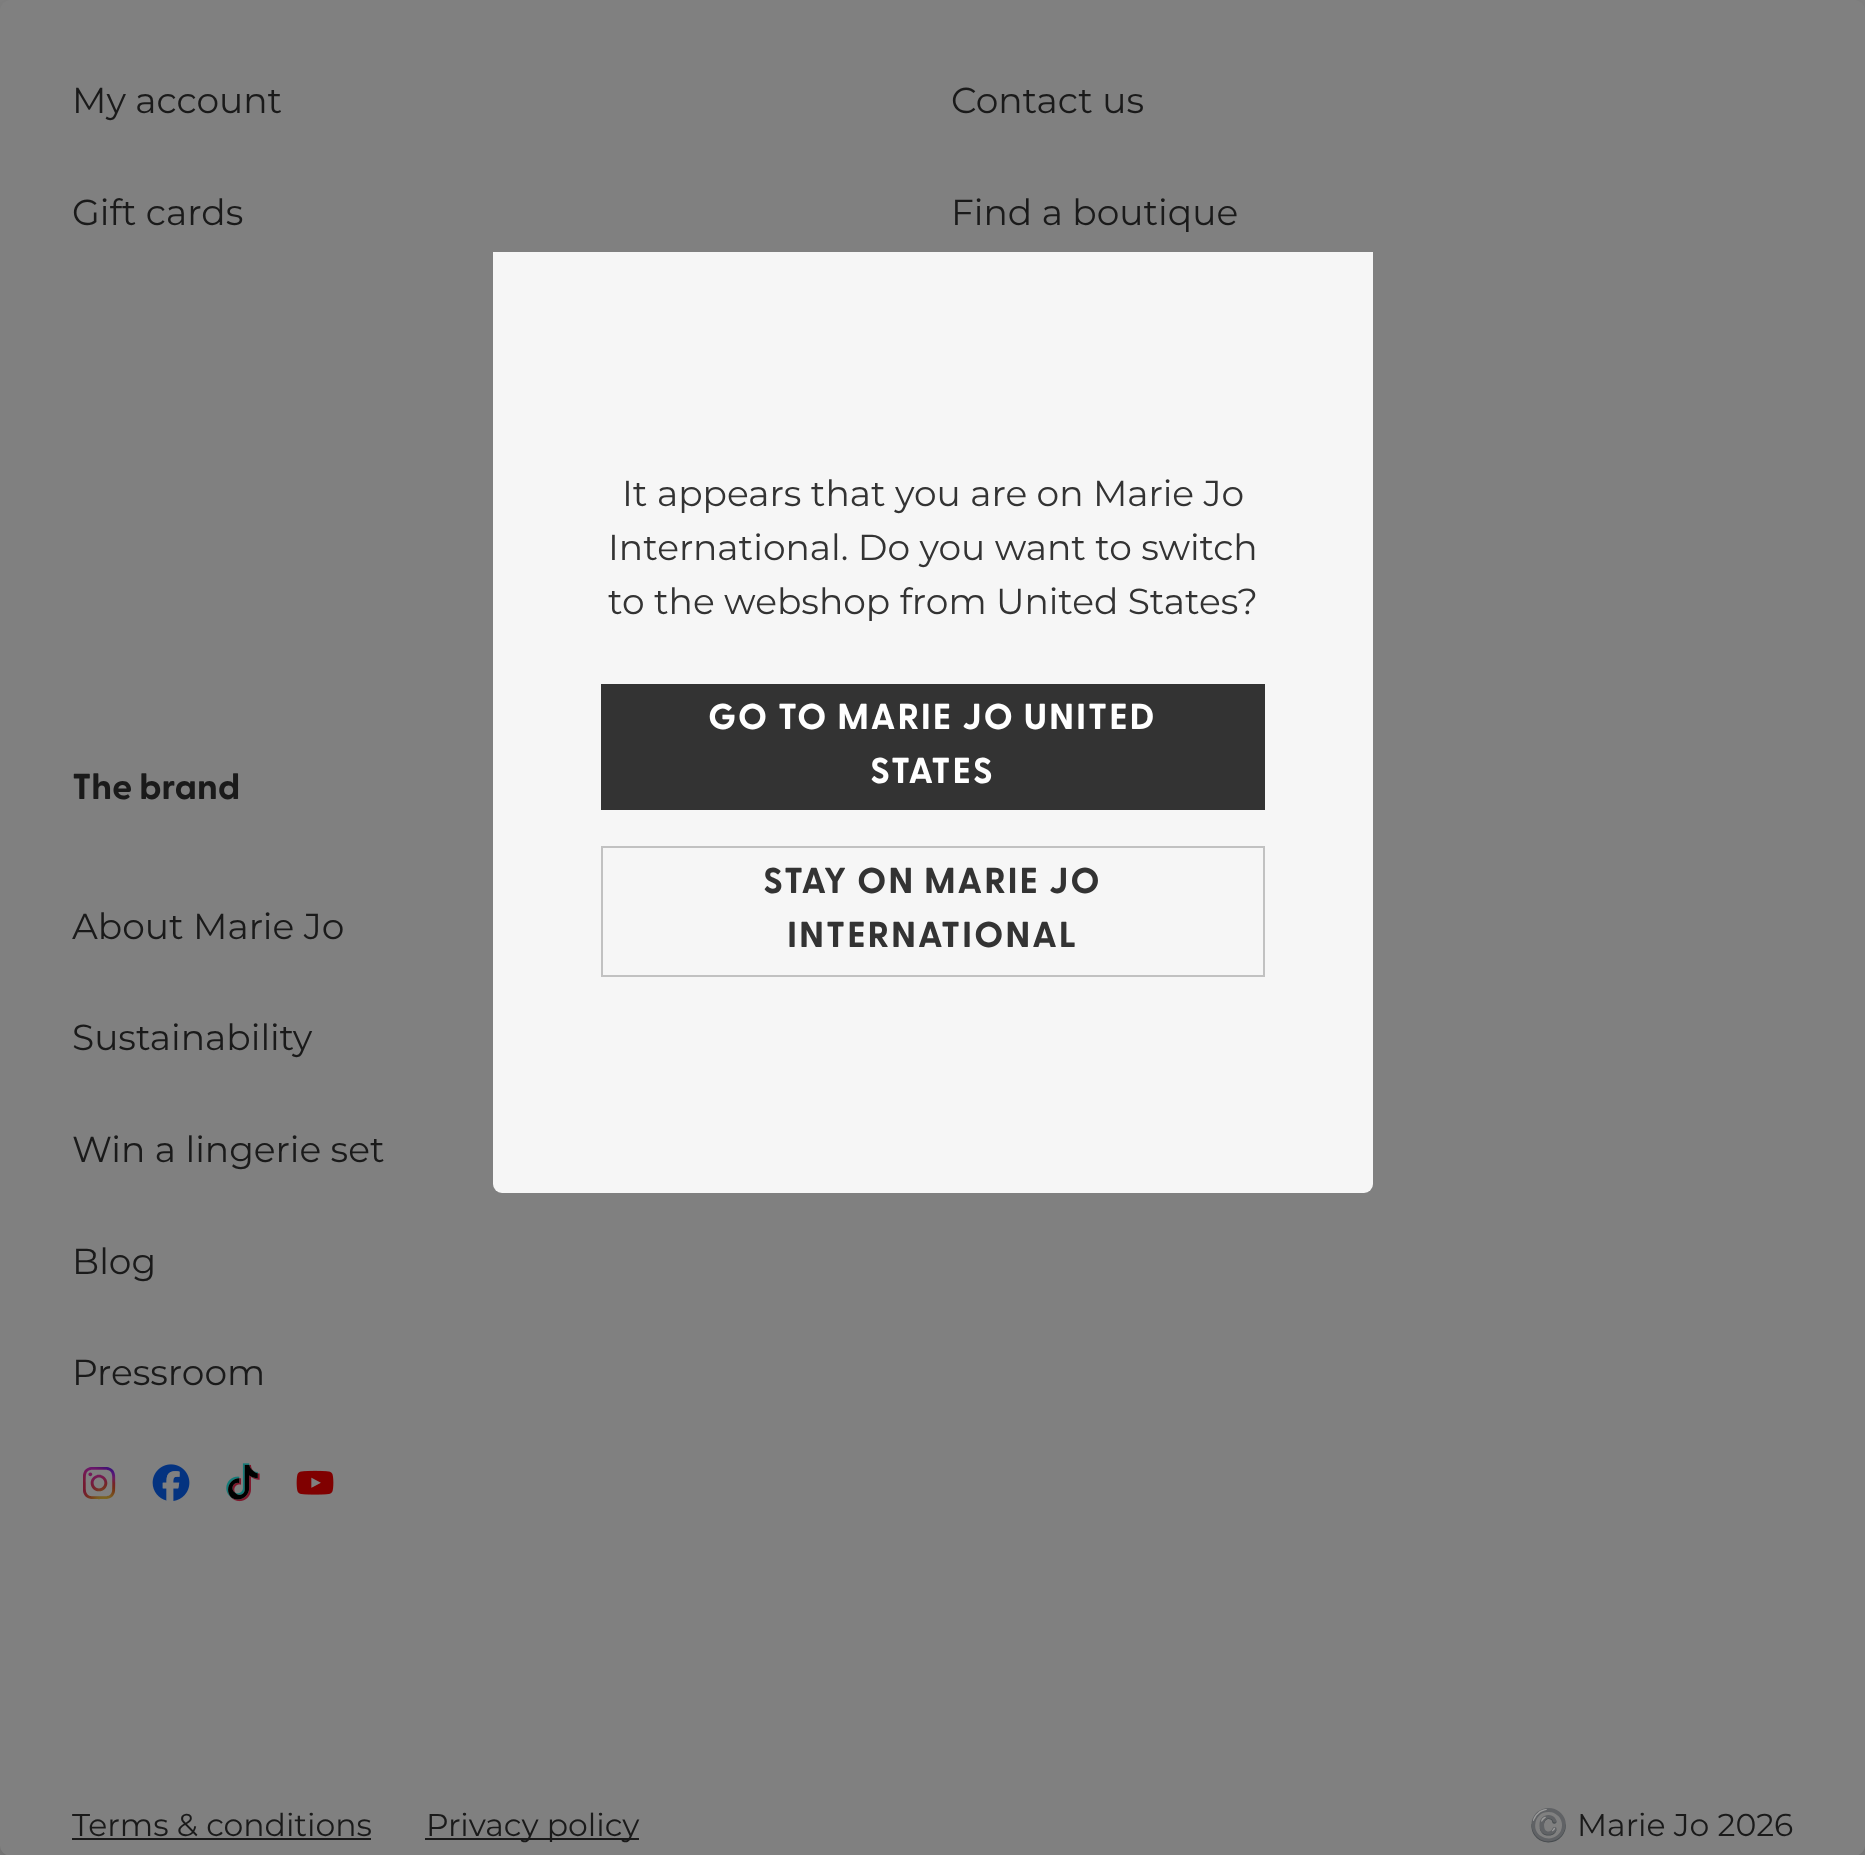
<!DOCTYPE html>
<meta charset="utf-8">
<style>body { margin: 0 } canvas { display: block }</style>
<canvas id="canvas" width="1865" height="1855"></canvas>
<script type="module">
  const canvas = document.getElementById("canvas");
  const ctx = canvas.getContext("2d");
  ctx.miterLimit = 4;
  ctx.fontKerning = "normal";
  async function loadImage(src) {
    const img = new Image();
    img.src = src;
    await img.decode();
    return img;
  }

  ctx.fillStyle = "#808080";
  ctx.fillRect(0, 0, 1865, 1855);
  ctx.font = "36px Montserrat";
  ctx.fillStyle = "#1a1a1a";
  ctx.fillText("My account", 72, 113);
  ctx.fillText("Gift cards", 72, 225);
  ctx.fillText("Contact us", 951, 113);
  ctx.fillText("Find a boutique", 951, 225);
  ctx.font = "bold 36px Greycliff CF";
  ctx.fillText("The brand", 72, 799);
  ctx.font = "36px Montserrat";
  ctx.fillText("About Marie Jo", 72, 939);
  ctx.fillText("Sustainability", 72, 1050);
  ctx.fillText("Win a lingerie set", 72, 1162);
  ctx.fillText("Blog", 72, 1274);
  ctx.fillText("Pressroom", 72, 1385);
  ctx.drawImage(await loadImage("img1.png"), 83, 1467, 33, 33);
  ctx.drawImage(await loadImage("img2.png"), 152, 1464, 38, 37);
  ctx.drawImage(await loadImage("img3.png"), 226, 1463, 34, 39);
  ctx.drawImage(await loadImage("img4.png"), 296, 1470, 38, 25);
  ctx.font = "31.5px Montserrat";
  ctx.fillText("Terms & conditions", 72, 1836);
  ctx.fillRect(72, 1838, 299, 2);
  ctx.fillRect(425, 1838, 214, 2);
  ctx.fillText("Privacy policy", 426, 1836);
  ctx.font = "31.5px Noto Color Emoji";
  ctx.fillText("©️", 1529, 1836);
  ctx.font = "31.5px Montserrat";
  ctx.fillText("Marie Jo 2026", 1577, 1836);
  ctx.save();
  ctx.beginPath();
  ctx.moveTo(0, 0);
  ctx.lineTo(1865, 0);
  ctx.lineTo(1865, 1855);
  ctx.lineTo(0, 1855);
  ctx.closePath();
  ctx.moveTo(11, 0);
  ctx.lineTo(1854, 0);
  ctx.bezierCurveTo(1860, 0, 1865, 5, 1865, 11);
  ctx.lineTo(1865, 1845);
  ctx.bezierCurveTo(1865, 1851, 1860, 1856, 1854, 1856);
  ctx.lineTo(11, 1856);
  ctx.bezierCurveTo(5, 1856, 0, 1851, 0, 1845);
  ctx.lineTo(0, 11);
  ctx.bezierCurveTo(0, 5, 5, 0, 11, 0);
  ctx.closePath();
  ctx.clip("evenodd");
  ctx.fillStyle = "rgba(0, 0, 0, 0.2)";
  ctx.filter = "blur(18px)";
  ctx.beginPath();
  ctx.roundRect(0, 18, 1865, 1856, 11);
  ctx.fill();
  ctx.filter = "none";
  ctx.restore();
  ctx.fillStyle = "#f6f6f6";
  ctx.beginPath();
  ctx.roundRect(493, 252, 880, 941, [0, 0, 9, 9]);
  ctx.fill();
  ctx.font = "36px Montserrat";
  ctx.fillStyle = "#333333";
  ctx.fillText("It appears that you are on Marie Jo", 622, 506);
  ctx.fillText("International. Do you want to switch", 608, 560);
  ctx.fillText("to the webshop from United States?", 608, 614);
  ctx.fillRect(601, 684, 664, 126);
  ctx.letterSpacing = "1.8px";
  ctx.font = "bold 36px Greycliff CF";
  ctx.fillStyle = "#ffffff";
  ctx.fillText("GO TO MARIE JO UNITED", 708, 729);
  ctx.fillText("STATES", 870, 783);
  ctx.strokeStyle = "#c1c1c1";
  ctx.lineWidth = 2;
  ctx.strokeRect(602, 847, 662, 129);
  ctx.fillStyle = "#333333";
  ctx.fillText("STAY ON MARIE JO", 763, 893);
  ctx.fillText("INTERNATIONAL", 787, 947);
</script>
